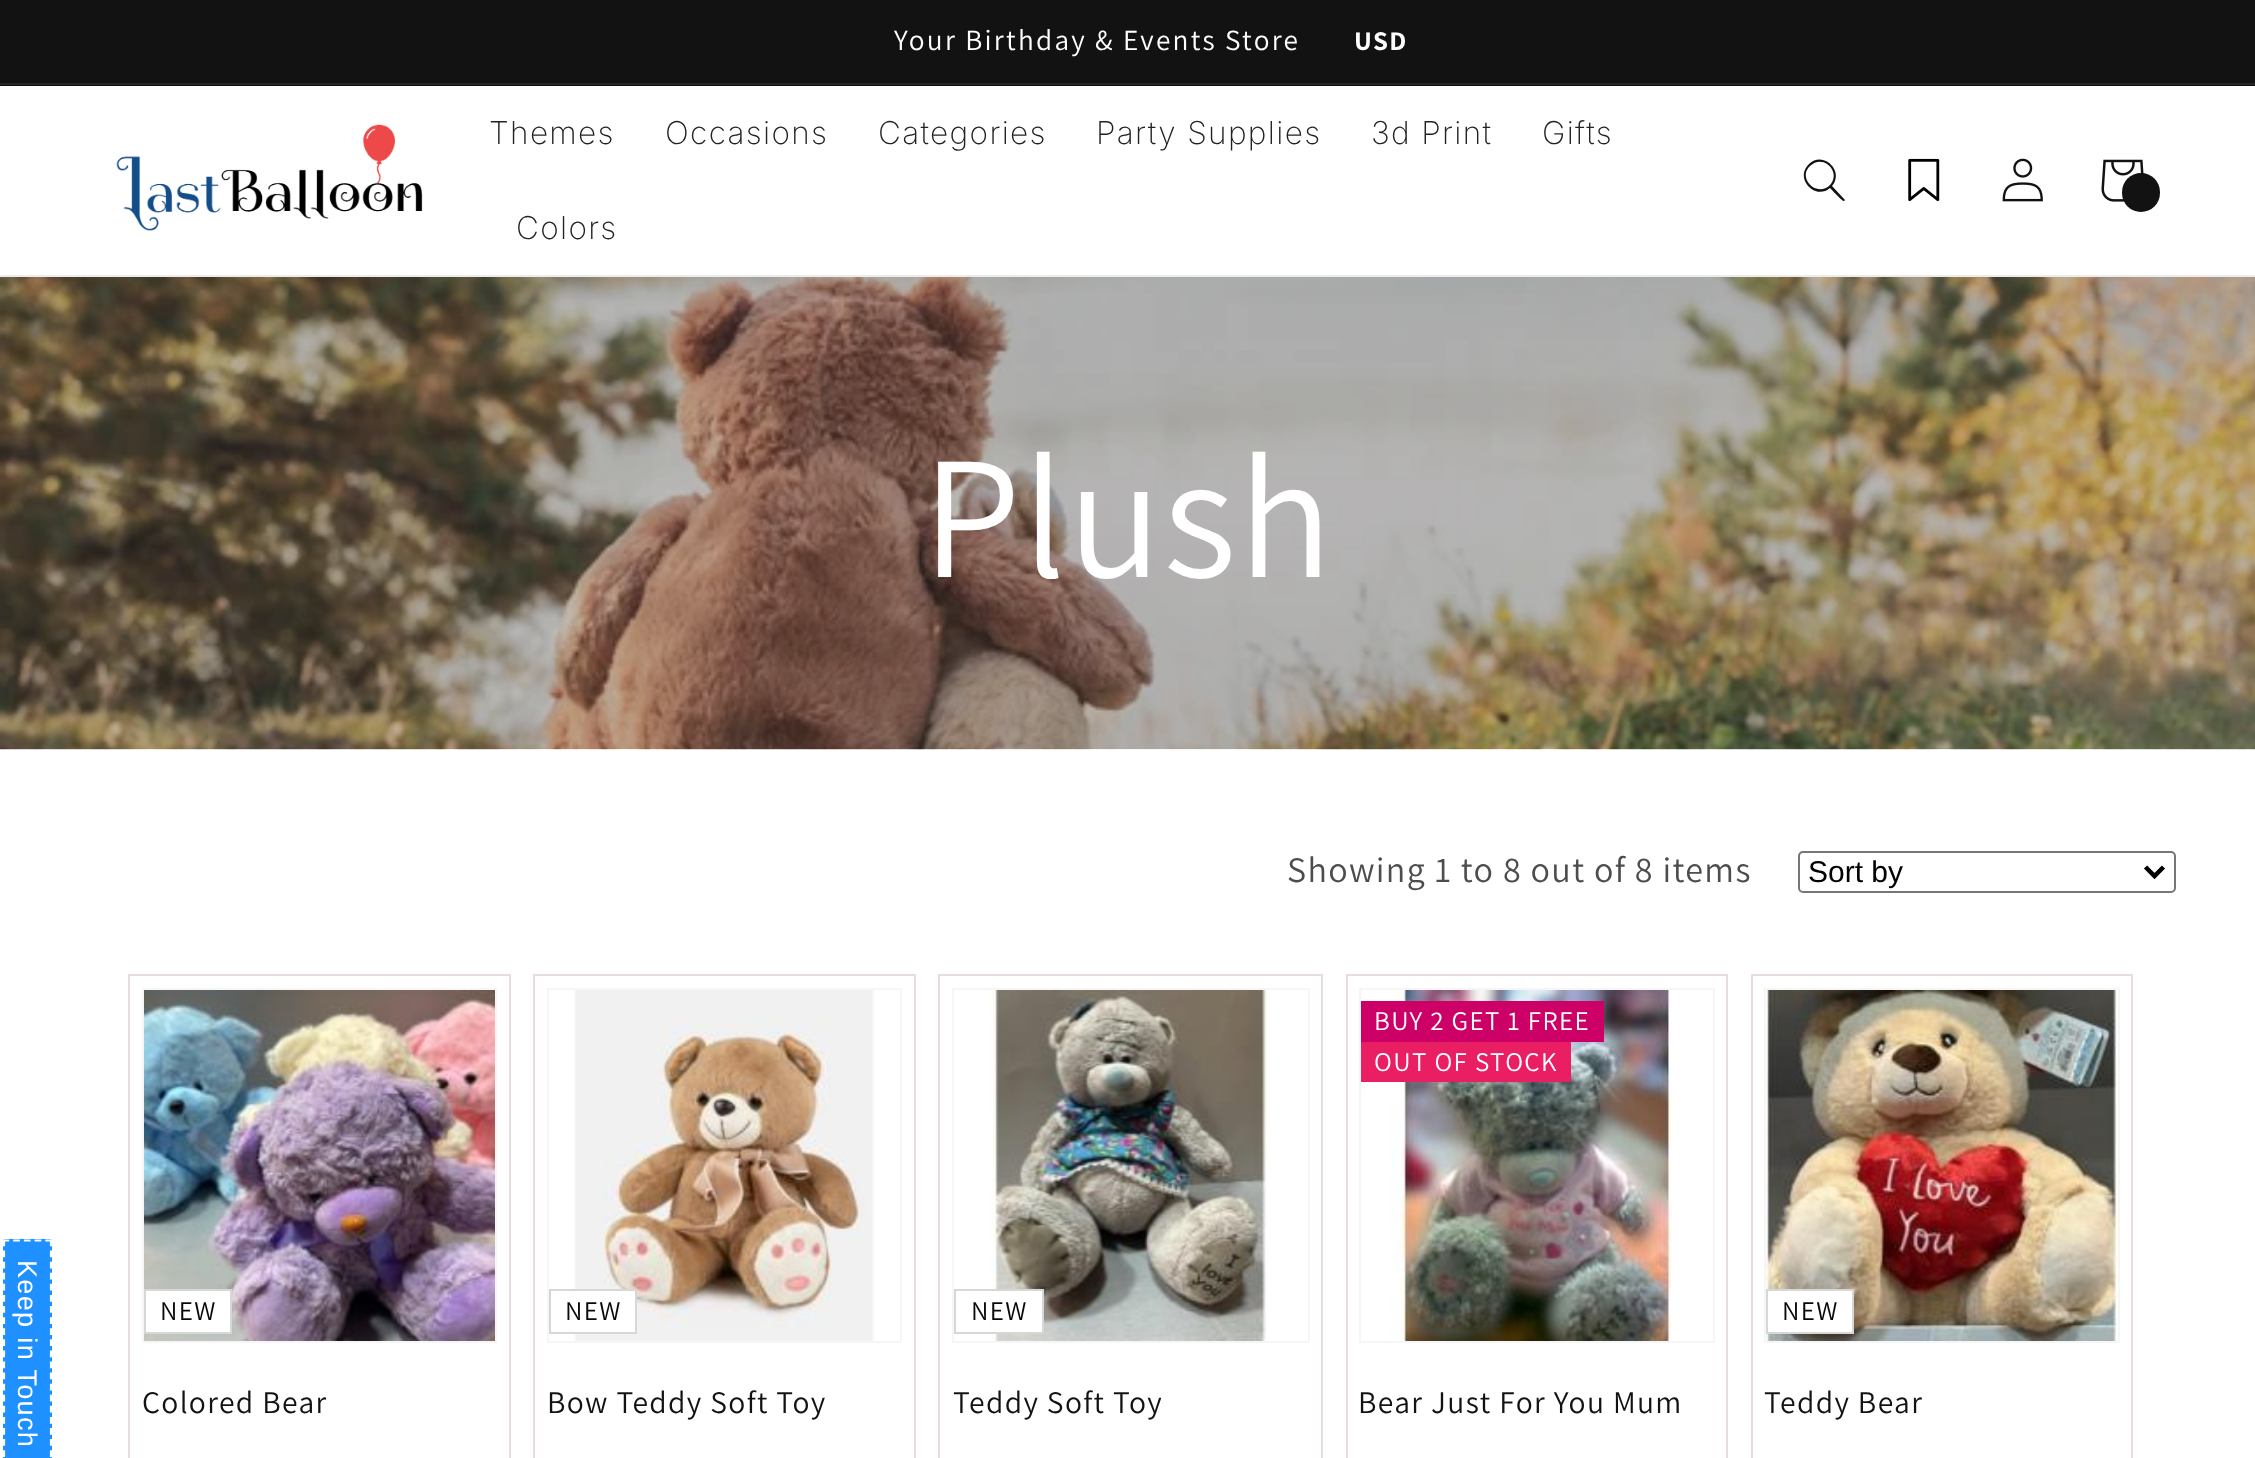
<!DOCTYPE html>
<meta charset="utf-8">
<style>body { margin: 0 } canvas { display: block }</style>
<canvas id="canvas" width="2255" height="1458"></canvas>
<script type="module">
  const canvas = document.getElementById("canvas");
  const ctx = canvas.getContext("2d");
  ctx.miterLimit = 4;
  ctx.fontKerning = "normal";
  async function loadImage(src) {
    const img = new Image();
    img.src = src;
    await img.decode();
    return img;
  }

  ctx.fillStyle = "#ffffff";
  ctx.fillRect(0, 0, 2255, 1458);
  ctx.fillStyle = "#121212";
  ctx.fillRect(0, 0, 2255, 86);
  ctx.fillStyle = "#252525";
  ctx.fillRect(0, 83, 2255, 2);
  ctx.letterSpacing = "2.25px";
  ctx.font = "29.25px Assistant";
  ctx.fillStyle = "#ffffff";
  ctx.fillText("Your Birthday & Events Store", 894, 50);
  ctx.letterSpacing = "1.35px";
  ctx.font = "bold 27px Assistant";
  ctx.fillText("USD", 1354, 50);
  ctx.fillStyle = "#ececec";
  ctx.fillRect(0, 275, 2255, 2);
  ctx.drawImage(await loadImage("img1.png"), 116, 124, 307, 107);
  ctx.font = "200 31.5px Inter";
  ctx.fillStyle = "#222222";
  ctx.fillText("Themes", 489, 144);
  ctx.fillText("Occasions", 665, 144);
  ctx.fillText("Categories", 878, 144);
  ctx.fillText("Party Supplies", 1096, 144);
  ctx.fillText("3d Print", 1371, 144);
  ctx.fillText("Gifts", 1542, 144);
  ctx.fillText("Colors", 516, 239);
  ctx.fillStyle = "#121212";
  ctx.beginPath();
  ctx.moveTo(1830, 185);
  ctx.bezierCurveTo(1817, 198, 1797, 178, 1810, 166);
  ctx.bezierCurveTo(1823, 153, 1842, 172, 1830, 185);
  ctx.closePath();
  ctx.moveTo(1830, 188);
  ctx.bezierCurveTo(1815, 201, 1794, 178, 1809, 164);
  ctx.bezierCurveTo(1823, 150, 1845, 171, 1832, 186);
  ctx.lineTo(1845, 200);
  ctx.lineTo(1844, 201);
  ctx.bezierCurveTo(1843, 202, 1832, 190, 1830, 188);
  ctx.closePath();
  ctx.fill("evenodd");
  ctx.drawImage(await loadImage("img2.png"), 1908, 158, 32, 44);
  ctx.drawImage(await loadImage("img3.png"), 2002, 158, 41, 44);
  ctx.drawImage(await loadImage("img4.png"), 2101, 159, 43, 43);
  ctx.beginPath();
  ctx.roundRect(2122, 173, 38, 39, 19);
  ctx.fill();
  ctx.drawImage(await loadImage("img5.png"), 0, 277, 2255, 473);
  ctx.font = "175.5px Assistant";
  ctx.fillStyle = "#ffffff";
  ctx.fillText("Plush", 922, 577);
  ctx.font = "36px Assistant";
  ctx.fillStyle = "#4d4d4d";
  ctx.fillText("Showing 1 to 8 out of 8 items", 1287, 882);
  ctx.beginPath();
  ctx.roundRect(1799, 852, 376, 40, 4);
  ctx.strokeStyle = "#767676";
  ctx.lineWidth = 2;
  ctx.stroke();
  ctx.beginPath();
  ctx.moveTo(2145.5, 867);
  ctx.lineTo(2154.5, 876);
  ctx.lineTo(2163.5, 867);
  ctx.strokeStyle = "#000000";
  ctx.lineWidth = 4.5;
  ctx.stroke();
  ctx.letterSpacing = "0px";
  ctx.font = "30px Liberation Sans";
  ctx.fillStyle = "#000000";
  ctx.fillText("Sort by", 1808, 882);
  ctx.fillStyle = "#1e90ff";
  ctx.fillRect(3, 1239, 49, 219);
  ctx.beginPath();
  ctx.moveTo(51, 1239.5);
  ctx.lineTo(51, 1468);
  ctx.strokeStyle = "#ffffff";
  ctx.lineWidth = 2.2;
  ctx.setLineDash([6.75, 4.34]);
  ctx.stroke();
  ctx.beginPath();
  ctx.moveTo(4, 1239.5);
  ctx.lineTo(4, 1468);
  ctx.stroke();
  ctx.beginPath();
  ctx.moveTo(52, 1240.5);
  ctx.lineTo(2.5, 1240.5);
  ctx.setLineDash([6.75, 3.94]);
  ctx.stroke();
  ctx.letterSpacing = "1.35px";
  ctx.font = "27px Liberation Sans";
  ctx.fillStyle = "#ffffff";
  ctx.save();
  ctx.translate(18, 1260);
  ctx.rotate(90 * Math.PI / 180);
  ctx.fillText("Keep in Touch", 0, 0);
  ctx.restore();
  ctx.strokeStyle = "#e7dddd";
  ctx.lineWidth = 2;
  ctx.setLineDash([]);
  ctx.strokeRect(129, 975, 381, 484);
  ctx.strokeStyle = "#f6f6f6";
  ctx.strokeRect(143, 989, 353, 353);
  ctx.drawImage(await loadImage("img6.png"), 144, 990, 351, 351);
  ctx.beginPath();
  ctx.rect(145, 1290, 86, 43);
  ctx.fill();
  ctx.strokeStyle = "#d7d7d7";
  ctx.stroke();
  ctx.font = "27px Assistant";
  ctx.fillStyle = "#080808";
  ctx.fillText("NEW", 160, 1320);
  ctx.font = "31.5px Assistant";
  ctx.fillStyle = "#121212";
  ctx.fillText("Colored Bear", 142, 1413);
  ctx.strokeStyle = "#e7dddd";
  ctx.strokeRect(534, 975, 381, 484);
  ctx.strokeStyle = "#f6f6f6";
  ctx.strokeRect(548, 989, 353, 353);
  ctx.drawImage(await loadImage("img7.png"), 574, 990, 300, 351);
  ctx.fillStyle = "#ffffff";
  ctx.fillRect(574, 1291, 61, 41);
  ctx.strokeStyle = "#d7d7d7";
  ctx.strokeRect(550, 1290, 86, 43);
  ctx.font = "27px Assistant";
  ctx.fillStyle = "#080808";
  ctx.fillText("NEW", 565, 1320);
  ctx.font = "31.5px Assistant";
  ctx.fillStyle = "#121212";
  ctx.fillText("Bow Teddy Soft Toy", 547, 1413);
  ctx.strokeStyle = "#e7dddd";
  ctx.strokeRect(939, 975, 383, 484);
  ctx.strokeStyle = "#f6f6f6";
  ctx.strokeRect(953, 989, 356, 353);
  ctx.drawImage(await loadImage("img8.png"), 990, 990, 277, 351);
  ctx.fillStyle = "#ffffff";
  ctx.fillRect(992, 1291, 50, 41);
  ctx.strokeStyle = "#d7d7d7";
  ctx.strokeRect(955, 1290, 88, 43);
  ctx.font = "27px Assistant";
  ctx.fillStyle = "#080808";
  ctx.fillText("NEW", 971, 1320);
  ctx.font = "31.5px Assistant";
  ctx.fillStyle = "#121212";
  ctx.fillText("Teddy Soft Toy", 953, 1413);
  ctx.strokeStyle = "#e7dddd";
  ctx.strokeRect(1347, 975, 380, 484);
  ctx.strokeStyle = "#f6f6f6";
  ctx.strokeRect(1360, 989, 354, 353);
  ctx.drawImage(await loadImage("img9.png"), 1390, 990, 282, 351);
  ctx.fillStyle = "#cc0066";
  ctx.fillRect(1361, 1001, 243, 41);
  ctx.font = "27px Assistant";
  ctx.fillStyle = "#ffffff";
  ctx.fillText("BUY 2 GET 1 FREE", 1374, 1030);
  ctx.fillStyle = "#e91e63";
  ctx.fillRect(1361, 1042, 210, 40);
  ctx.fillStyle = "#ffffff";
  ctx.fillText("OUT OF STOCK", 1374, 1071);
  ctx.font = "31.5px Assistant";
  ctx.fillStyle = "#121212";
  ctx.fillText("Bear Just For You Mum", 1358, 1413);
  ctx.strokeStyle = "#e7dddd";
  ctx.strokeRect(1752, 975, 380, 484);
  ctx.strokeStyle = "#f6f6f6";
  ctx.strokeRect(1765, 989, 354, 353);
  ctx.drawImage(await loadImage("img10.png"), 1766, 990, 352, 351);
  ctx.fillStyle = "#ffffff";
  ctx.beginPath();
  ctx.rect(1767, 1290, 86, 43);
  ctx.fill();
  ctx.strokeStyle = "#d7d7d7";
  ctx.stroke();
  ctx.font = "27px Assistant";
  ctx.fillStyle = "#080808";
  ctx.fillText("NEW", 1782, 1320);
  ctx.font = "31.5px Assistant";
  ctx.fillStyle = "#121212";
  ctx.fillText("Teddy Bear", 1764, 1413);
</script>
